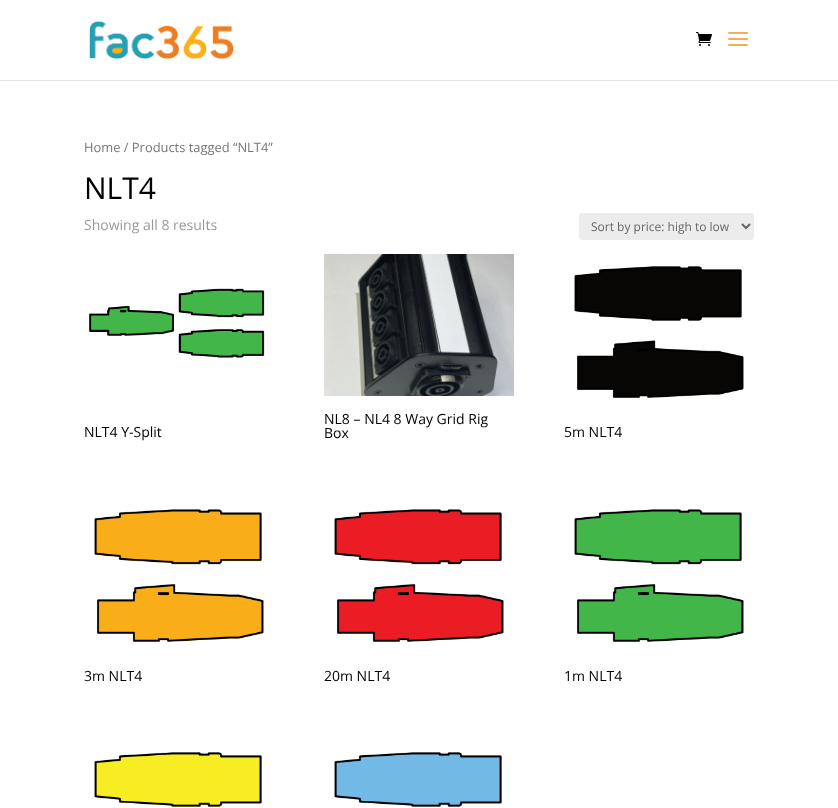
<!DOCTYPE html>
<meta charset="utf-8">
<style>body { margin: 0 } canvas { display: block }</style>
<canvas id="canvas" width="838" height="808"></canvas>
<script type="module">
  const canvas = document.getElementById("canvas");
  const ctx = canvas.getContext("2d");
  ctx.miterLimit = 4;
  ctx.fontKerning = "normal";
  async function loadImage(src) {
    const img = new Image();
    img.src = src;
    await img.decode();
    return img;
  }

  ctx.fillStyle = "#ffffff";
  ctx.fillRect(0, 0, 838, 808);
  ctx.fillStyle = "#e6e6e6";
  ctx.fillRect(0, 80, 838, 1);
  ctx.drawImage(await loadImage("img1.png"), 89, 21, 145, 39);
  ctx.drawImage(await loadImage("img2.png"), 696, 32, 16, 14);
  ctx.drawImage(await loadImage("img3.png"), 728, 32, 20, 14);
  ctx.font = "12.9px Open Sans";
  ctx.fillStyle = "#767676";
  ctx.fillText("Home / Products tagged “NLT4”", 84, 152);
  ctx.font = "30px Open Sans";
  ctx.fillStyle = "#000000";
  ctx.fillText("NLT4", 84, 199);
  ctx.font = "14px Open Sans";
  ctx.fillStyle = "#999999";
  ctx.fillText("Showing all 8 results", 84, 230);
  ctx.fillStyle = "#ececec";
  ctx.beginPath();
  ctx.roundRect(579, 213, 175, 27, 3);
  ctx.fill();
  ctx.beginPath();
  ctx.moveTo(742, 224);
  ctx.lineTo(746, 228);
  ctx.lineTo(750, 224);
  ctx.strokeStyle = "#666666";
  ctx.lineWidth = 2;
  ctx.stroke();
  ctx.font = "12px Open Sans";
  ctx.fillStyle = "#666666";
  ctx.fillText("Sort by price: high to low", 591, 231);
  ctx.drawImage(await loadImage("img4.png"), 89, 288, 176, 70);
  ctx.font = "14px Open Sans";
  ctx.fillStyle = "#000000";
  ctx.fillText("NLT4 Y-Split", 84, 437);
  ctx.drawImage(await loadImage("img5.png"), 324, 254, 190, 142);
  ctx.fillText("NL8 – NL4 8 Way Grid Rig", 324, 424);
  ctx.fillText("Box", 324, 438);
  ctx.drawImage(await loadImage("img6.png"), 574, 266, 170, 132);
  ctx.fillText("5m NLT4", 564, 437);
  ctx.drawImage(await loadImage("img7.png"), 94, 509, 170, 133);
  ctx.fillText("3m NLT4", 84, 681);
  ctx.drawImage(await loadImage("img8.png"), 334, 509, 170, 133);
  ctx.fillText("20m NLT4", 324, 681);
  ctx.drawImage(await loadImage("img9.png"), 574, 509, 170, 133);
  ctx.fillText("1m NLT4", 564, 681);
  ctx.drawImage(await loadImage("img10.png"), 94, 752, 168, 55);
  ctx.drawImage(await loadImage("img11.png"), 334, 752, 168, 55);
</script>
